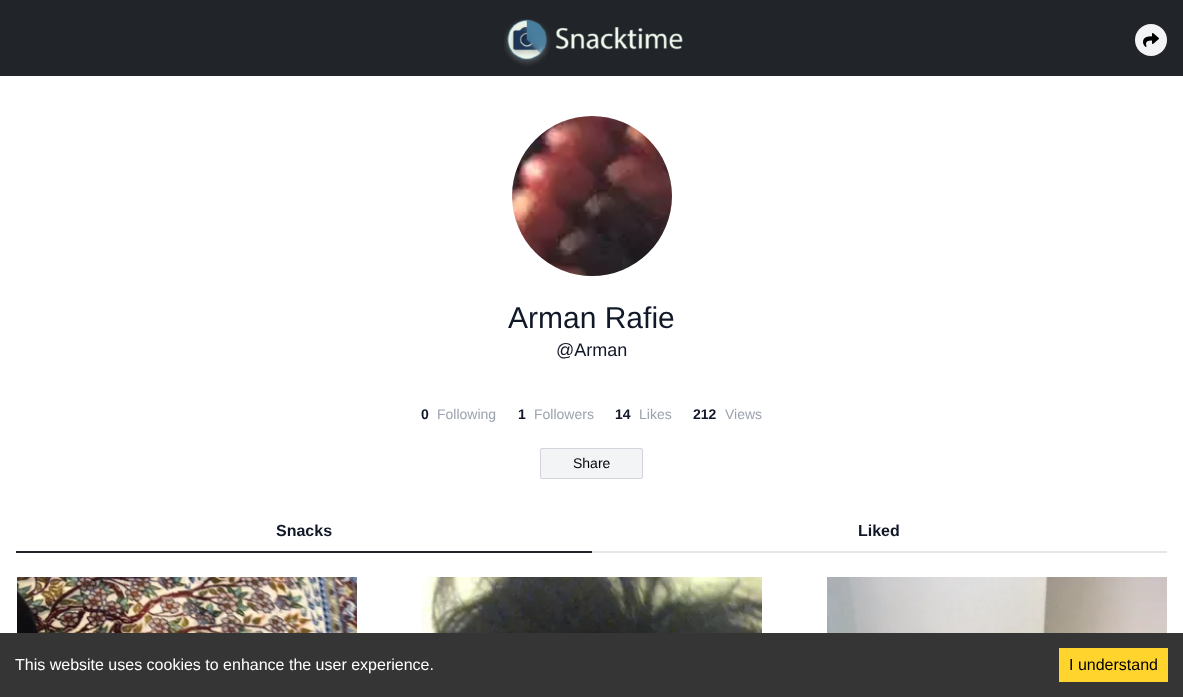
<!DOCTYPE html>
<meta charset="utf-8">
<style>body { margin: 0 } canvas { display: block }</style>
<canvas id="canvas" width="1183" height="697"></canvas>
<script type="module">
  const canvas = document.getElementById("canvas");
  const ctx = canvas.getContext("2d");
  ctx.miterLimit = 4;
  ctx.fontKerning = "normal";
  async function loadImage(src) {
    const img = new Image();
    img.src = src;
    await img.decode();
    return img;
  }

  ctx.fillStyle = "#ffffff";
  ctx.fillRect(0, 0, 1183, 697);
  ctx.fillStyle = "#21252a";
  ctx.fillRect(0, 0, 1183, 76);
  ctx.drawImage(await loadImage("img1.png"), 504, 19, 179, 47);
  ctx.fillStyle = "#f3f4f6";
  ctx.beginPath();
  ctx.arc(1151, 40, 16, 0, Math.PI * 2);
  ctx.fill();
  ctx.drawImage(await loadImage("img2.png"), 1143, 33, 16, 14);
  ctx.drawImage(await loadImage("img3.png"), 512, 116, 160, 160);
  ctx.font = "30px Liberation Sans";
  ctx.fillStyle = "#111827";
  ctx.fillText("Arman Rafie", 508, 328);
  ctx.font = "18px Liberation Sans";
  ctx.fillText("@Arman", 556, 356);
  ctx.font = "bold 14px Liberation Sans";
  ctx.fillText("0", 421, 419);
  ctx.font = "14px Liberation Sans";
  ctx.fillStyle = "#9ca3af";
  ctx.fillText("Following", 437, 419);
  ctx.font = "bold 14px Liberation Sans";
  ctx.fillStyle = "#111827";
  ctx.fillText("1", 518, 419);
  ctx.font = "14px Liberation Sans";
  ctx.fillStyle = "#9ca3af";
  ctx.fillText("Followers", 534, 419);
  ctx.font = "bold 14px Liberation Sans";
  ctx.fillStyle = "#111827";
  ctx.fillText("14", 615, 419);
  ctx.font = "14px Liberation Sans";
  ctx.fillStyle = "#9ca3af";
  ctx.fillText("Likes", 639, 419);
  ctx.font = "bold 14px Liberation Sans";
  ctx.fillStyle = "#111827";
  ctx.fillText("212", 693, 419);
  ctx.font = "14px Liberation Sans";
  ctx.fillStyle = "#9ca3af";
  ctx.fillText("Views", 725, 419);
  ctx.fillStyle = "#f3f4f6";
  ctx.beginPath();
  ctx.roundRect(540.5, 448.5, 102, 30, 1.5);
  ctx.fill();
  ctx.strokeStyle = "#d1d5db";
  ctx.stroke();
  ctx.fillStyle = "#000000";
  ctx.fillText("Share", 573, 468);
  ctx.fillStyle = "#21252a";
  ctx.fillRect(16, 551, 576, 2);
  ctx.font = "bold 16px Liberation Sans";
  ctx.fillStyle = "#111827";
  ctx.fillText("Snacks", 276, 536);
  ctx.fillStyle = "#e5e7eb";
  ctx.fillRect(592, 551, 575, 2);
  ctx.fillStyle = "#111827";
  ctx.fillText("Liked", 858, 536);
  ctx.drawImage(await loadImage("img4.png"), 17, 577, 340, 56);
  ctx.drawImage(await loadImage("img5.png"), 422, 577, 340, 56);
  ctx.drawImage(await loadImage("img6.png"), 827, 577, 340, 56);
  ctx.fillStyle = "#353535";
  ctx.fillRect(0, 633, 1183, 64);
  ctx.font = "16px Liberation Sans";
  ctx.fillStyle = "#ffffff";
  ctx.fillText("This website uses cookies to enhance the user experience.", 15, 670);
  ctx.fillStyle = "#ffd42d";
  ctx.fillRect(1059, 648, 109, 34);
  ctx.fillStyle = "#000000";
  ctx.fillText("I understand", 1069, 670);
</script>
